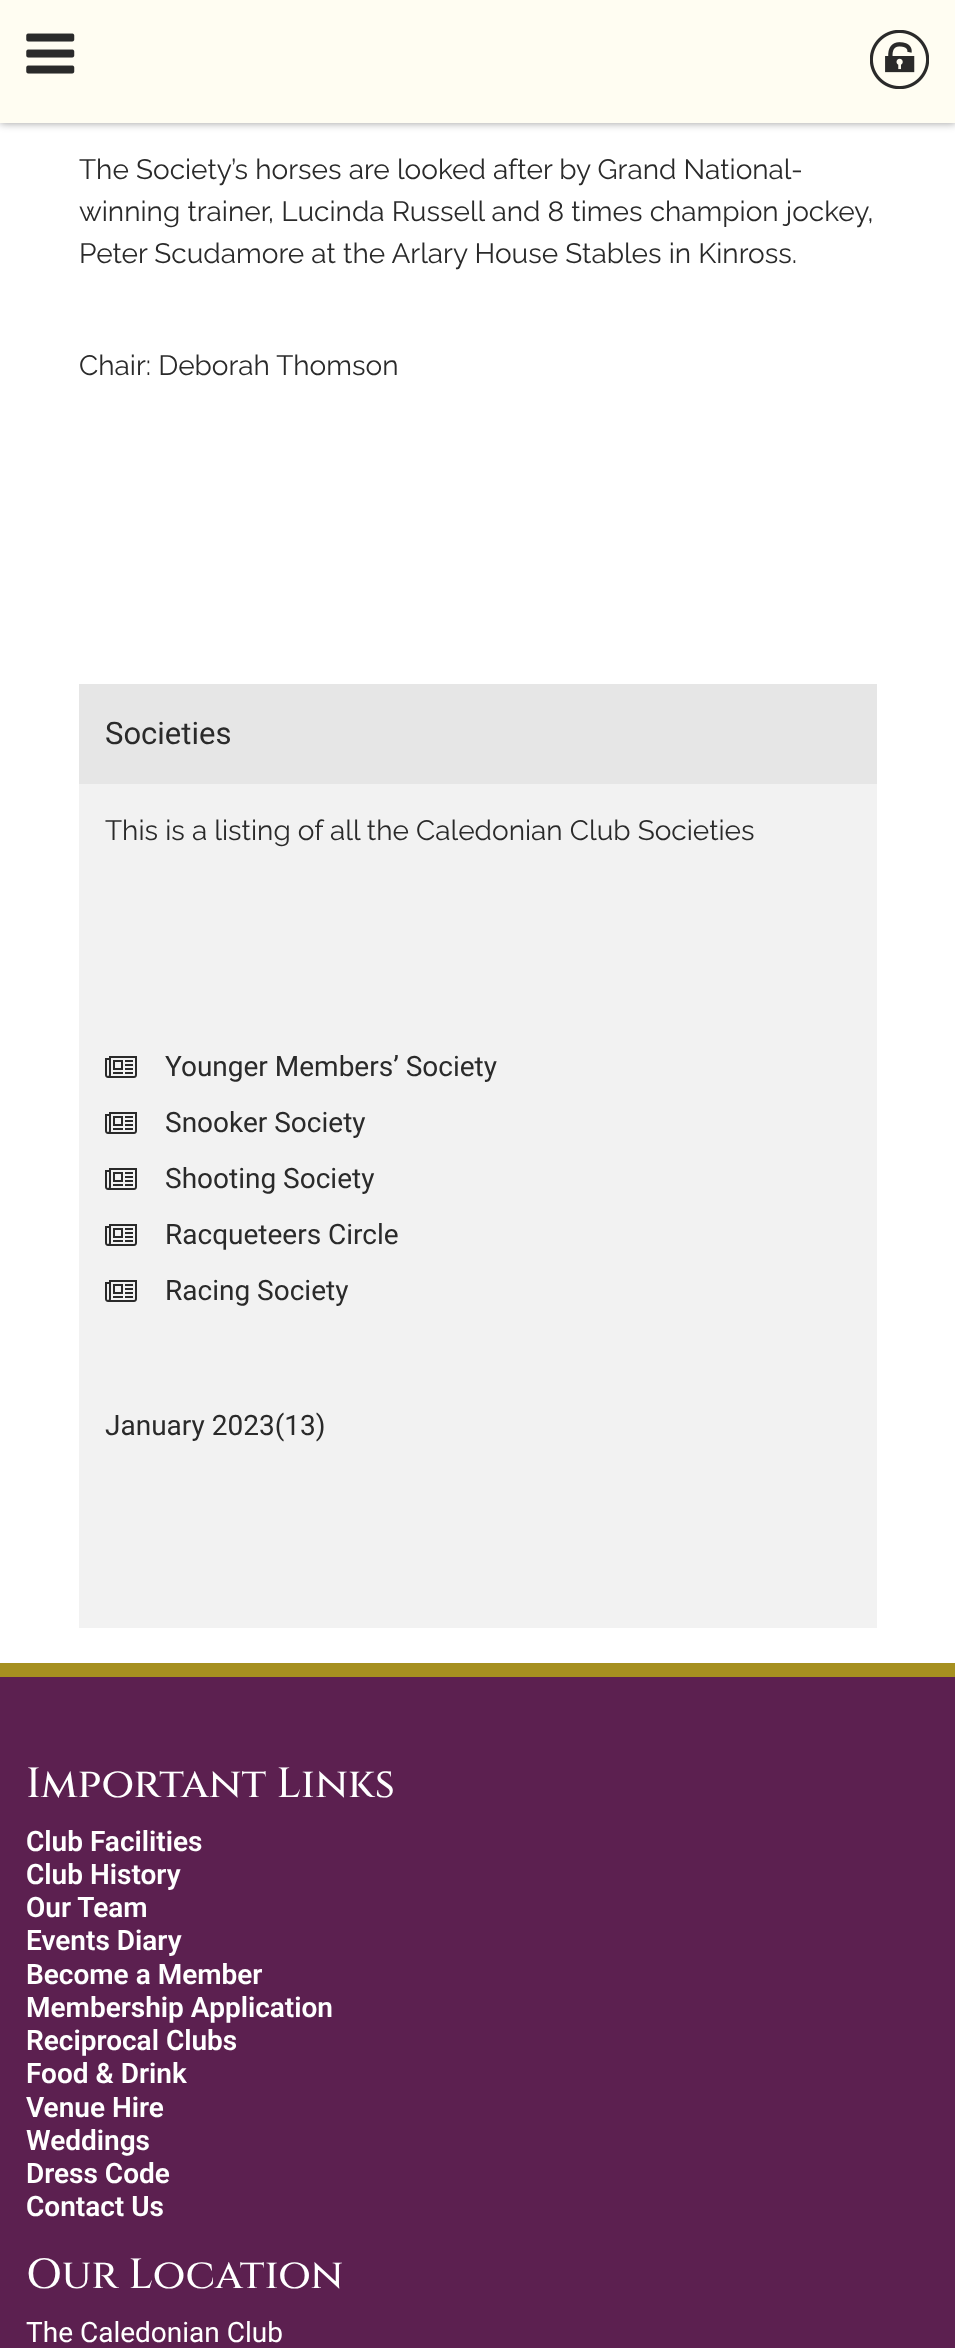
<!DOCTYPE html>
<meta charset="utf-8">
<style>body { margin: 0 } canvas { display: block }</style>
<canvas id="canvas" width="955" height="2348"></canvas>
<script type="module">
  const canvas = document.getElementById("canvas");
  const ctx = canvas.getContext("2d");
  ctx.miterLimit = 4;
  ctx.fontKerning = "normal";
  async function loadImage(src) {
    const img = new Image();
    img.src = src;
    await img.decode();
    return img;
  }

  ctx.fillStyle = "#ffffff";
  ctx.fillRect(0, 0, 955, 2348);
  ctx.fillStyle = "rgba(0, 0, 0, 0.4)";
  ctx.filter = "blur(4.5px)";
  ctx.beginPath();
  ctx.rect(0, 0, 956, 123);
  ctx.fill();
  ctx.filter = "none";
  ctx.fillStyle = "#fffdf2";
  ctx.fillRect(0, 0, 955, 123);
  ctx.drawImage(await loadImage("img1.png"), 26, 33, 49, 41);
  ctx.drawImage(await loadImage("img2.png"), 870, 30, 59, 59);
  ctx.font = "28px Raleway";
  ctx.fillStyle = "#2a2a2a";
  ctx.fillText("The Society’s horses are looked after by Grand National-", 79, 179);
  ctx.fillText("winning trainer, Lucinda Russell and 8 times champion jockey,", 79, 221);
  ctx.fillText("Peter Scudamore at the Arlary House Stables in Kinross.", 79, 263);
  ctx.fillText("Chair: Deborah Thomson", 79, 375);
  ctx.fillStyle = "#f2f2f2";
  ctx.fillRect(79, 784, 798, 844);
  ctx.fillStyle = "#e6e6e6";
  ctx.fillRect(79, 684, 798, 100);
  ctx.font = "31px Roboto";
  ctx.fillStyle = "#2a2a2a";
  ctx.fillText("Societies", 105, 744);
  ctx.font = "28px Raleway";
  ctx.fillText("This is a listing of all the Caledonian Club Societies", 105, 840);
  ctx.drawImage(await loadImage("img3.png"), 105, 1056, 32, 22);
  ctx.font = "28px Roboto";
  ctx.fillText("Younger Members’ Society", 165, 1076);
  ctx.drawImage(await loadImage("img3.png"), 105, 1112, 32, 22);
  ctx.fillText("Snooker Society", 165, 1132);
  ctx.drawImage(await loadImage("img3.png"), 105, 1168, 32, 22);
  ctx.fillText("Shooting Society", 165, 1188);
  ctx.drawImage(await loadImage("img3.png"), 105, 1224, 32, 22);
  ctx.fillText("Racqueteers Circle", 165, 1244);
  ctx.drawImage(await loadImage("img3.png"), 105, 1280, 32, 22);
  ctx.fillText("Racing Society", 165, 1300);
  ctx.fillText("January 2023(13)", 105, 1435);
  ctx.fillStyle = "#5c2050";
  ctx.fillRect(0, 1677, 955, 671);
  ctx.fillStyle = "#a69020";
  ctx.fillRect(0, 1663, 955, 14);
  ctx.font = "500 42px Cinzel";
  ctx.fillStyle = "#ffffff";
  ctx.fillText("Important Links", 26, 1797);
  ctx.font = "600 28px Roboto";
  ctx.fillText("Club Facilities", 26, 1851);
  ctx.fillText("Club History", 26, 1884);
  ctx.fillText("Our Team", 26, 1917);
  ctx.fillText("Events Diary", 26, 1950);
  ctx.fillText("Become a Member", 26, 1984);
  ctx.fillText("Membership Application", 26, 2017);
  ctx.fillText("Reciprocal Clubs", 26, 2050);
  ctx.fillText("Food & Drink", 26, 2083);
  ctx.fillText("Venue Hire", 26, 2117);
  ctx.fillText("Weddings", 26, 2150);
  ctx.fillText("Dress Code", 26, 2183);
  ctx.fillText("Contact Us", 26, 2216);
  ctx.font = "500 42px Cinzel";
  ctx.fillText("Our Location", 26, 2288);
  ctx.font = "28px Roboto";
  ctx.fillText("The Caledonian Club", 26, 2342);
</script>
